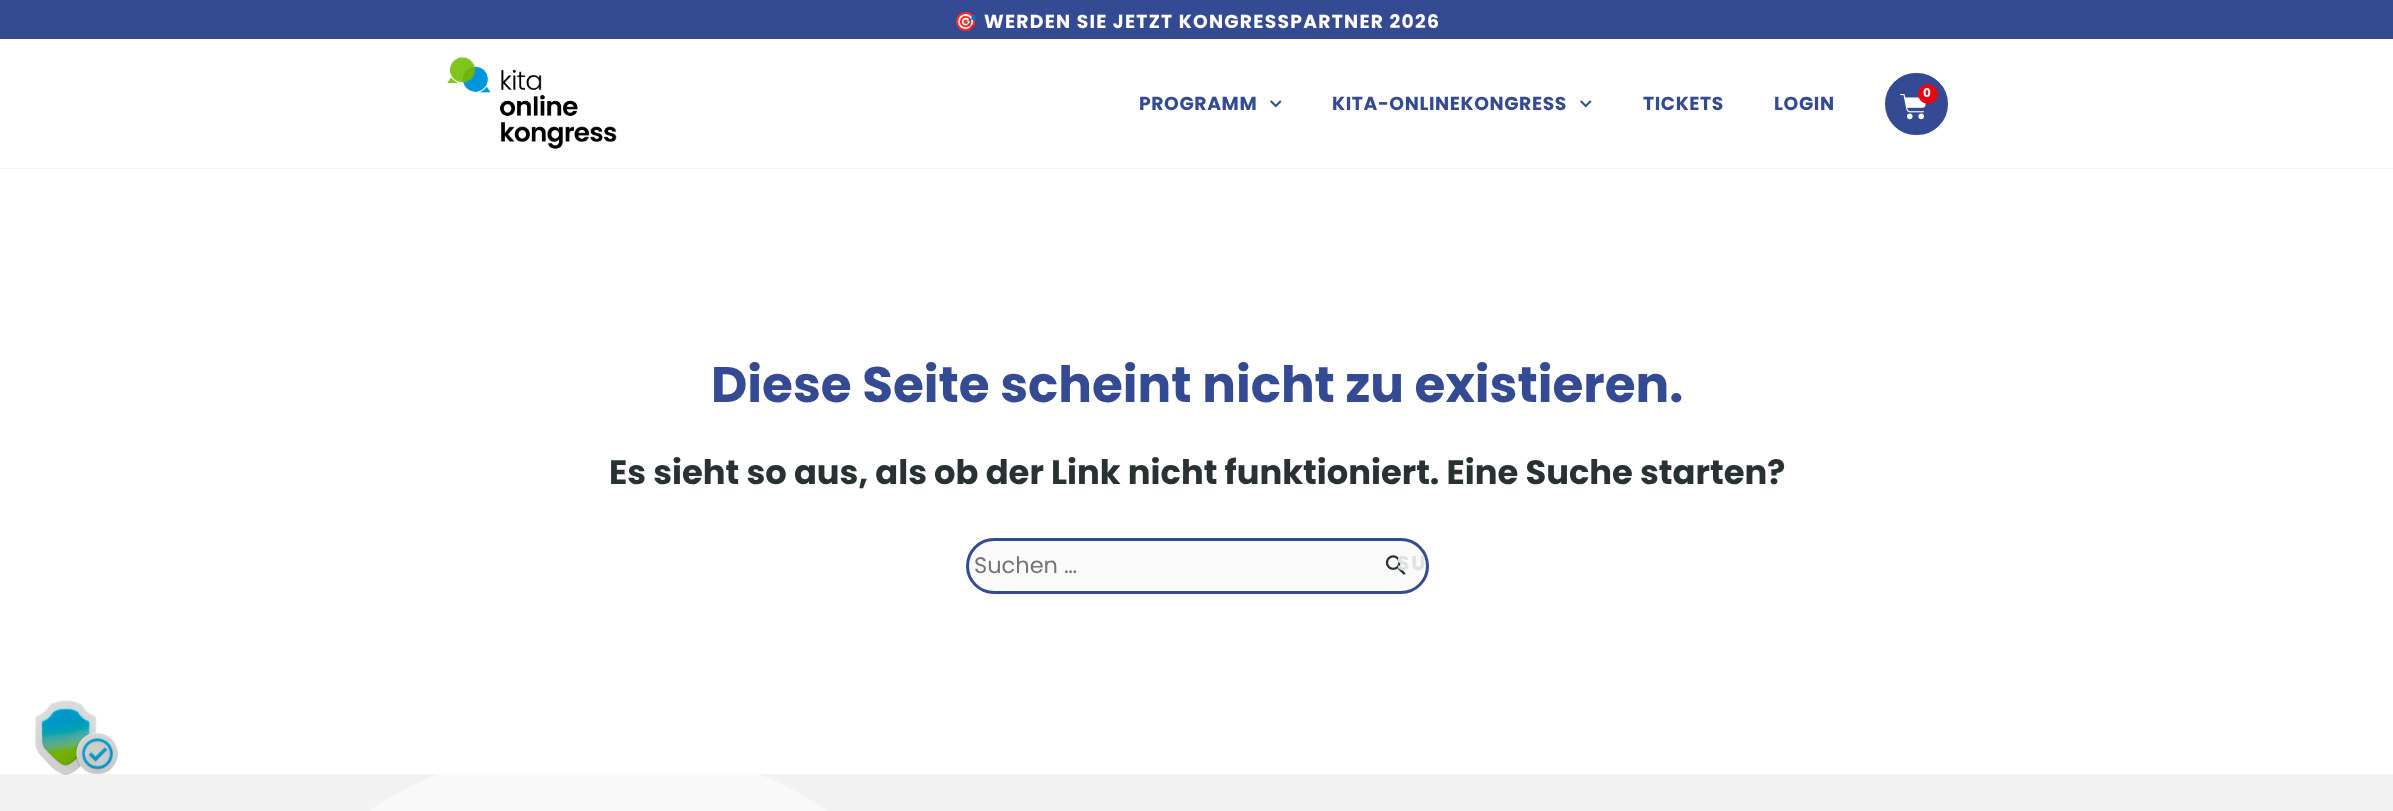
<!DOCTYPE html>
<meta charset="utf-8">
<style>body { margin: 0 } canvas { display: block }</style>
<canvas id="canvas" width="2393" height="811"></canvas>
<script type="module">
  const canvas = document.getElementById("canvas");
  const ctx = canvas.getContext("2d");
  ctx.miterLimit = 4;
  ctx.fontKerning = "normal";
  async function loadImage(src) {
    const img = new Image();
    img.src = src;
    await img.decode();
    return img;
  }

  ctx.fillStyle = "#ffffff";
  ctx.fillRect(0, 0, 2393, 811);
  ctx.fillStyle = "#344a93";
  ctx.fillRect(0, 0, 2393, 39);
  ctx.letterSpacing = "1.25px";
  ctx.font = "bold 18.75px Noto Color Emoji";
  ctx.fillStyle = "#ffffff";
  ctx.fillText("🎯", 954, 28);
  ctx.font = "bold 18.75px Poppins";
  ctx.fillText("WERDEN SIE JETZT KONGRESSPARTNER 2026", 984, 28);
  ctx.fillStyle = "#f2f2f2";
  ctx.fillRect(0, 168, 2393, 1);
  ctx.drawImage(await loadImage("img1.png"), 447, 57, 170, 92);
  ctx.fillStyle = "#344a93";
  ctx.beginPath();
  ctx.roundRect(1886.5, 74.5, 60, 59, 29.5);
  ctx.fill();
  ctx.strokeStyle = "#344a93";
  ctx.lineWidth = 3;
  ctx.stroke();
  ctx.drawImage(await loadImage("img2.png"), 1900, 94, 26, 26);
  ctx.fillStyle = "#e9060e";
  ctx.beginPath();
  ctx.arc(1928, 94, 10, 0, Math.PI * 2);
  ctx.fill();
  ctx.letterSpacing = "2px";
  ctx.font = "bold 12px Poppins";
  ctx.fillStyle = "#ffffff";
  ctx.fillText("0", 1923, 97);
  ctx.letterSpacing = "0.6px";
  ctx.font = "bold 18.75px Poppins";
  ctx.fillStyle = "#344a93";
  ctx.fillText("PROGRAMM", 1139, 110);
  ctx.drawImage(await loadImage("img3.png"), 1270, 100, 12, 8);
  ctx.fillText("KITA-ONLINEKONGRESS", 1332, 110);
  ctx.drawImage(await loadImage("img3.png"), 1580, 100, 12, 8);
  ctx.fillText("TICKETS", 1643, 110);
  ctx.fillText("LOGIN", 1774, 110);
  ctx.letterSpacing = "0px";
  ctx.font = "bold 50px Poppins";
  ctx.fillText("Diese Seite scheint nicht zu existieren.", 711, 402);
  ctx.font = "bold 33.75px Poppins";
  ctx.fillStyle = "#283233";
  ctx.fillText("Es sieht so aus, als ob der Link nicht funktioniert. Eine Suche starten?", 609, 484);
  ctx.fillStyle = "#fafafa";
  ctx.beginPath();
  ctx.roundRect(967.5, 539.5, 460, 53, 26.5);
  ctx.fill();
  ctx.stroke();
  ctx.font = "22.5px Poppins";
  ctx.fillStyle = "#757575";
  ctx.fillText("Suchen …", 974, 573);
  ctx.drawImage(await loadImage("img4.png"), 1385, 555, 21, 20);
  ctx.letterSpacing = "2px";
  ctx.font = "bold 20px Poppins";
  ctx.fillStyle = "#dfe1e4";
  ctx.fillText("SU", 1397, 570);
  ctx.fillStyle = "#f2f2f2";
  ctx.fillRect(0, 774, 2393, 37);
  ctx.drawImage(await loadImage("img5.png"), 370, 774, 457, 37);
  ctx.drawImage(await loadImage("img6.png"), 35, 700, 83, 75);
</script>
